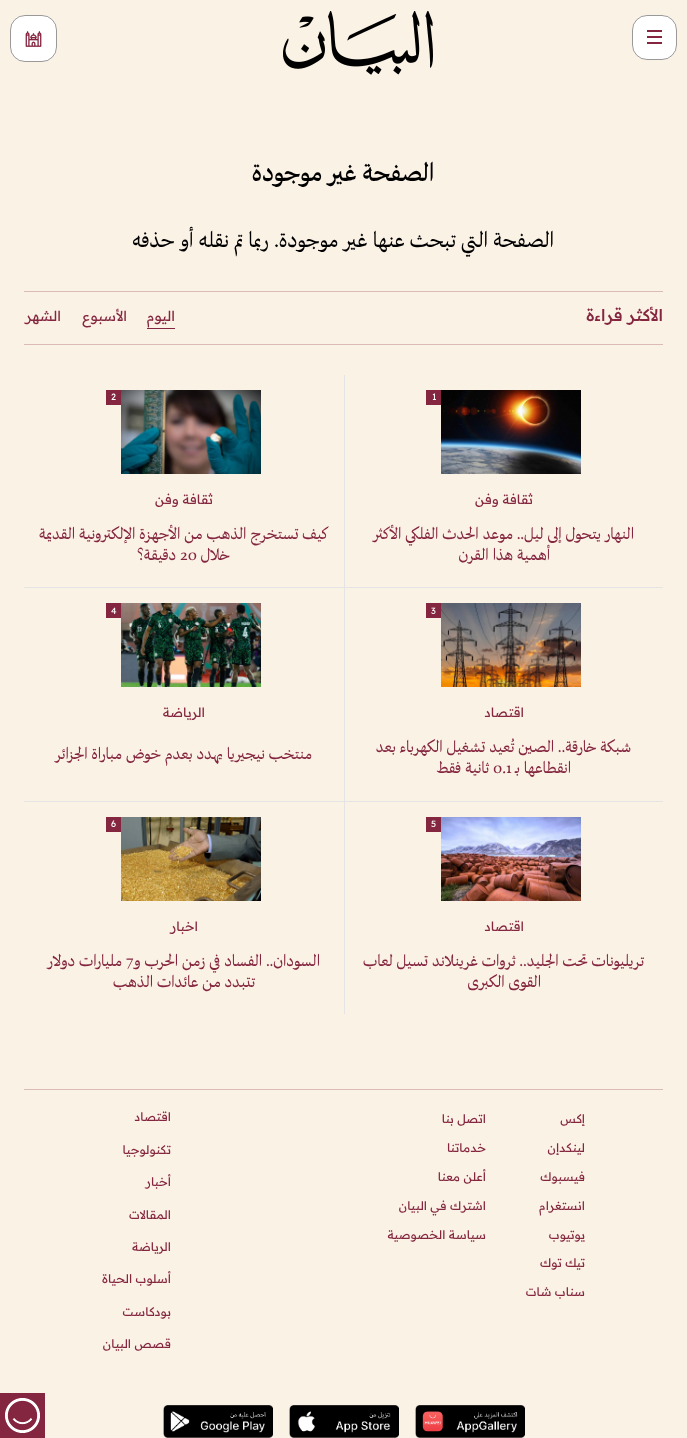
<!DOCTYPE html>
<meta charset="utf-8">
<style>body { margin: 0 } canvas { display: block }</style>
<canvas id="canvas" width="687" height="1438"></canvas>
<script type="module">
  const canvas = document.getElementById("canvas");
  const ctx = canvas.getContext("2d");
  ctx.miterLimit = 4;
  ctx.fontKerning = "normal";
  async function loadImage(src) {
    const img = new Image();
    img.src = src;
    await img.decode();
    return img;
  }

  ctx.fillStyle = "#fbf2e6";
  ctx.fillRect(0, 0, 687, 1438);
  ctx.fillStyle = "#ffffff";
  ctx.beginPath();
  ctx.roundRect(632, 15, 45, 45, 15);
  ctx.fill();
  ctx.beginPath();
  ctx.roundRect(632.5, 15.5, 44, 44, 14.5);
  ctx.strokeStyle = "rgba(0, 0, 0, 0.4)";
  ctx.stroke();
  ctx.fillStyle = "#84263f";
  ctx.fillRect(647, 30, 15, 2);
  ctx.fillRect(647, 36, 15, 2);
  ctx.fillRect(647, 42, 15, 2);
  ctx.drawImage(await loadImage("img1.png"), 283, 11, 150, 64);
  ctx.fillStyle = "#ffffff";
  ctx.beginPath();
  ctx.roundRect(10, 15, 47, 47, 15);
  ctx.fill();
  ctx.beginPath();
  ctx.roundRect(10.5, 15.5, 46, 46, 14.5);
  ctx.stroke();
  ctx.drawImage(await loadImage("img2.png"), 25, 31, 17, 16);
  ctx.direction = "rtl";
  ctx.font = "500 28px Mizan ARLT";
  ctx.fillStyle = "#000000";
  ctx.fillText("الصفحة غير موجودة", 434, 181);
  ctx.font = "24px Mizan ARLT";
  ctx.fillText("الصفحة التي تبحث عنها غير موجودة. ربما تم نقله أو حذفه", 554, 247);
  ctx.fillStyle = "#dbbbb6";
  ctx.fillRect(24, 291, 639, 1);
  ctx.font = "500 16.25px Readex Pro";
  ctx.fillStyle = "#84263f";
  ctx.fillText("الأكثر قراءة", 663, 321);
  ctx.fillStyle = "#dbbbb6";
  ctx.fillRect(24, 344, 639, 1);
  ctx.fillStyle = "#84263f";
  ctx.fillRect(147, 328, 28, 1);
  ctx.font = "14px Readex Pro";
  ctx.fillText("اليوم", 175, 321);
  ctx.fillText("الأسبوع", 127, 321);
  ctx.fillText("الشهر", 61, 321);
  ctx.fillStyle = "#e4e4e4";
  ctx.fillRect(24, 587, 639, 1);
  ctx.fillRect(344, 375, 1, 426);
  ctx.drawImage(await loadImage("img3.png"), 441, 390, 140, 84);
  ctx.fillStyle = "#84263f";
  ctx.fillRect(426, 390, 15, 15);
  ctx.direction = "ltr";
  ctx.font = "9px Readex Pro";
  ctx.fillStyle = "#ffffff";
  ctx.fillText("1", 432, 400);
  ctx.direction = "rtl";
  ctx.font = "13px Readex Pro";
  ctx.fillStyle = "#84263f";
  ctx.fillText("ثقافة وفن", 533, 504);
  ctx.font = "18px Mizan ARLT";
  ctx.fillText("النهار يتحول إلى ليل.. موعد الحدث الفلكي الأكثر", 634, 539);
  ctx.fillText("أهمية هذا القرن", 550, 560);
  ctx.drawImage(await loadImage("img4.png"), 121, 390, 140, 84);
  ctx.fillRect(106, 390, 15, 15);
  ctx.direction = "ltr";
  ctx.font = "9px Readex Pro";
  ctx.fillStyle = "#ffffff";
  ctx.fillText("2", 111, 400);
  ctx.direction = "rtl";
  ctx.font = "13px Readex Pro";
  ctx.fillStyle = "#84263f";
  ctx.fillText("ثقافة وفن", 213, 504);
  ctx.font = "18px Mizan ARLT";
  ctx.fillText("كيف تستخرج الذهب من الأجهزة الإلكترونية القديمة", 328, 539);
  ctx.fillText("خلال", 230, 560);
  ctx.direction = "ltr";
  ctx.fillText("20", 180, 560);
  ctx.direction = "rtl";
  ctx.fillText("دقيقة؟", 176, 560);
  ctx.drawImage(await loadImage("img5.png"), 441, 603, 140, 84);
  ctx.fillRect(426, 603, 15, 15);
  ctx.direction = "ltr";
  ctx.font = "9px Readex Pro";
  ctx.fillStyle = "#ffffff";
  ctx.fillText("3", 431, 614);
  ctx.direction = "rtl";
  ctx.font = "13px Readex Pro";
  ctx.fillStyle = "#84263f";
  ctx.fillText("اقتصاد", 524, 717);
  ctx.font = "18px Mizan ARLT";
  ctx.fillText("شبكة خارقة.. الصين تُعيد تشغيل الكهرباء بعد", 631, 752);
  ctx.fillText("انقطاعها بـ", 571, 773);
  ctx.direction = "ltr";
  ctx.fillText("0.1", 493, 773);
  ctx.direction = "rtl";
  ctx.fillText("ثانية فقط", 489, 773);
  ctx.drawImage(await loadImage("img6.png"), 121, 603, 140, 84);
  ctx.fillRect(106, 603, 15, 15);
  ctx.direction = "ltr";
  ctx.font = "9px Readex Pro";
  ctx.fillStyle = "#ffffff";
  ctx.fillText("4", 111, 614);
  ctx.direction = "rtl";
  ctx.font = "13px Readex Pro";
  ctx.fillStyle = "#84263f";
  ctx.fillText("الرياضة", 205, 717);
  ctx.font = "18px Mizan ARLT";
  ctx.fillText("منتخب نيجيريا يهدد بعدم خوض مباراة الجزائر", 312, 759);
  ctx.fillStyle = "#e4e4e4";
  ctx.fillRect(24, 801, 639, 1);
  ctx.fillRect(344, 801, 1, 213);
  ctx.drawImage(await loadImage("img7.png"), 441, 817, 140, 84);
  ctx.fillStyle = "#84263f";
  ctx.fillRect(426, 817, 15, 15);
  ctx.direction = "ltr";
  ctx.font = "9px Readex Pro";
  ctx.fillStyle = "#ffffff";
  ctx.fillText("5", 431, 827);
  ctx.direction = "rtl";
  ctx.font = "13px Readex Pro";
  ctx.fillStyle = "#84263f";
  ctx.fillText("اقتصاد", 524, 931);
  ctx.font = "18px Mizan ARLT";
  ctx.fillText("تريليونات تحت الجليد.. ثروات غرينلاند تسيل لعاب", 644, 966);
  ctx.fillText("القوى الكبرى", 541, 987);
  ctx.drawImage(await loadImage("img8.png"), 121, 817, 140, 84);
  ctx.fillRect(106, 817, 15, 15);
  ctx.direction = "ltr";
  ctx.font = "9px Readex Pro";
  ctx.fillStyle = "#ffffff";
  ctx.fillText("6", 111, 827);
  ctx.direction = "rtl";
  ctx.font = "13px Readex Pro";
  ctx.fillStyle = "#84263f";
  ctx.fillText("اخبار", 198, 931);
  ctx.direction = "ltr";
  ctx.font = "18px Mizan ARLT";
  ctx.fillText("7", 126, 966);
  ctx.direction = "rtl";
  ctx.fillText("السودان.. الفساد في زمن الحرب و", 320, 966);
  ctx.fillText("مليارات دولار", 122, 966);
  ctx.fillText("تتبدد من عائدات الذهب", 255, 987);
  ctx.fillStyle = "#dbbbb6";
  ctx.fillRect(24, 1089, 639, 1);
  ctx.font = "12px Readex Pro";
  ctx.fillStyle = "#84263f";
  ctx.fillText("إكس", 585, 1123);
  ctx.fillText("لينكدإن", 585, 1152);
  ctx.fillText("فيسبوك", 585, 1181);
  ctx.fillText("انستغرام", 585, 1210);
  ctx.fillText("يوتيوب", 585, 1239);
  ctx.fillText("تيك توك", 585, 1267);
  ctx.fillText("سناب شات", 585, 1296);
  ctx.fillText("اتصل بنا", 486, 1123);
  ctx.fillText("خدماتنا", 486, 1152);
  ctx.fillText("أعلن معنا", 486, 1181);
  ctx.fillText("اشترك في البيان", 486, 1210);
  ctx.fillText("سياسة الخصوصية", 486, 1239);
  ctx.fillText("اقتصاد", 171, 1121);
  ctx.fillText("تكنولوجيا", 171, 1154);
  ctx.fillText("أخبار", 171, 1186);
  ctx.fillText("المقالات", 171, 1219);
  ctx.fillText("الرياضة", 171, 1251);
  ctx.fillText("أسلوب الحياة", 171, 1283);
  ctx.fillText("بودكاست", 171, 1316);
  ctx.fillText("قصص البيان", 171, 1348);
  ctx.drawImage(await loadImage("img9.png"), 415, 1405, 110, 33);
  ctx.drawImage(await loadImage("img10.png"), 289, 1405, 110, 33);
  ctx.drawImage(await loadImage("img11.png"), 163, 1405, 110, 33);
  ctx.fillRect(0, 1393, 45, 45);
  ctx.drawImage(await loadImage("img12.png"), 5, 1398, 35, 35);
</script>
